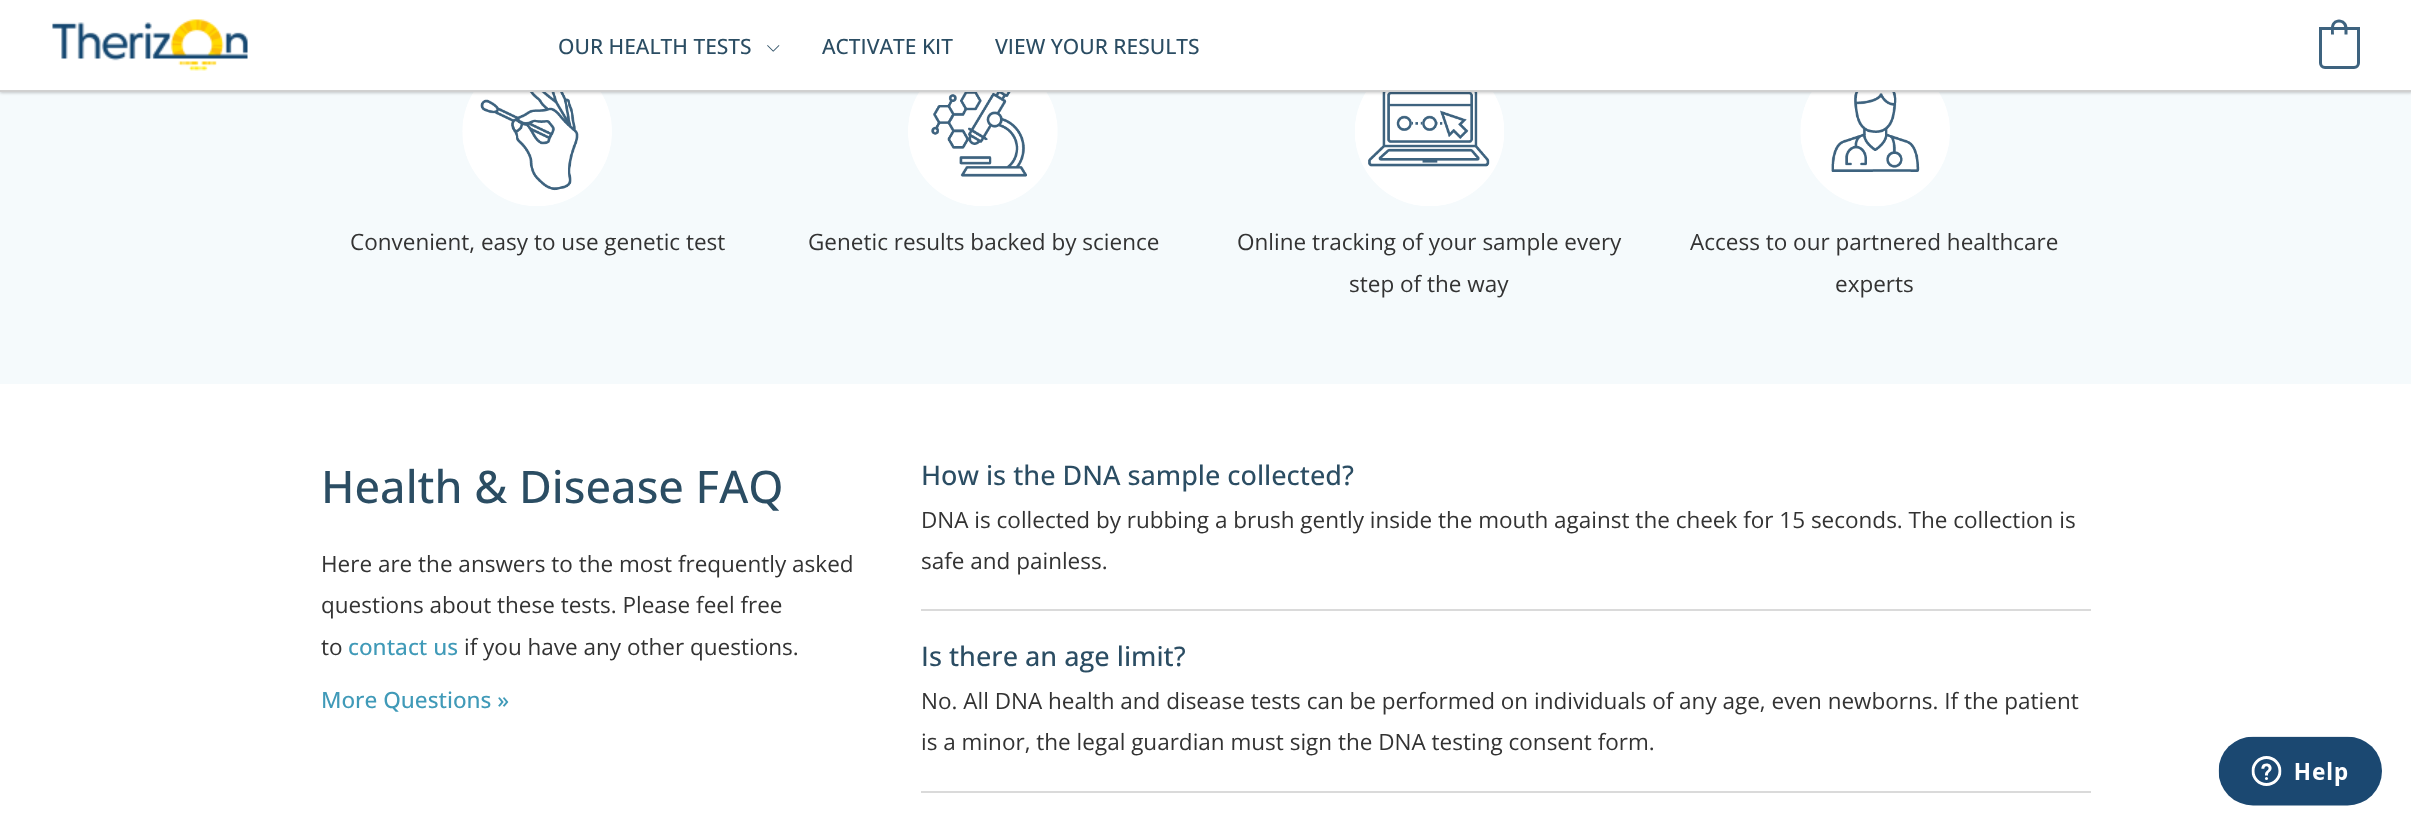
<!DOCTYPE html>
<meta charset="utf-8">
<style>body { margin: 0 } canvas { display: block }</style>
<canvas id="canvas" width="2411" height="826"></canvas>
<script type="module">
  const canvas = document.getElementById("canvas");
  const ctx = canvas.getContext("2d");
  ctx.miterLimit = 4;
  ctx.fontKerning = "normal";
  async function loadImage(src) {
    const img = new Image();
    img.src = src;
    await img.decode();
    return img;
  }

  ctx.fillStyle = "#ffffff";
  ctx.fillRect(0, 0, 2411, 826);
  ctx.fillStyle = "#f5fafc";
  ctx.fillRect(0, 92, 2411, 292);
  ctx.drawImage(await loadImage("img3.png"), 462, 92, 150, 114);
  ctx.drawImage(await loadImage("img4.png"), 908, 92, 150, 114);
  ctx.drawImage(await loadImage("img5.png"), 1355, 92, 149, 114);
  ctx.drawImage(await loadImage("img6.png"), 1800, 92, 150, 114);
  ctx.fillStyle = "rgba(0, 0, 0, 0.2)";
  ctx.filter = "blur(1.5px)";
  ctx.beginPath();
  ctx.rect(0, 2, 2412, 91);
  ctx.fill();
  ctx.filter = "none";
  ctx.fillStyle = "#ffffff";
  ctx.fillRect(0, 0, 2411, 90);
  ctx.fillStyle = "#d0d0d0";
  ctx.fillRect(0, 90, 2411, 2);
  ctx.drawImage(await loadImage("img1.png"), 52, 19, 196, 52);
  ctx.font = "500 21px Open Sans";
  ctx.fillStyle = "#2b4d63";
  ctx.fillText("OUR HEALTH TESTS", 558, 54);
  ctx.drawImage(await loadImage("img2.png"), 767, 45, 13, 7);
  ctx.fillText("ACTIVATE KIT", 822, 54);
  ctx.fillText("VIEW YOUR RESULTS", 995, 54);
  ctx.beginPath();
  ctx.roundRect(2320.5, 28.5, 38, 39, [0, 0, 4.5, 4.5]);
  ctx.strokeStyle = "#3e637f";
  ctx.lineWidth = 3;
  ctx.stroke();
  ctx.fillStyle = "#3e637f";
  ctx.beginPath();
  ctx.moveTo(2339, 19.5);
  ctx.bezierCurveTo(2343.5, 19.5, 2347.5, 23, 2347.5, 28);
  ctx.lineTo(2347.5, 34.5);
  ctx.lineTo(2331, 34.5);
  ctx.lineTo(2331, 28);
  ctx.bezierCurveTo(2331, 23, 2334.5, 19.5, 2339, 19.5);
  ctx.closePath();
  ctx.moveTo(2339, 22.5);
  ctx.bezierCurveTo(2345.5, 22.5, 2344.5, 30, 2344.5, 34.5);
  ctx.lineTo(2334, 34.5);
  ctx.bezierCurveTo(2334, 30, 2332.5, 22.5, 2339, 22.5);
  ctx.closePath();
  ctx.fill("evenodd");
  ctx.font = "22.5px Open Sans";
  ctx.fillStyle = "#333333";
  ctx.fillText("Convenient, easy to use genetic test", 350, 250);
  ctx.fillText("Genetic results backed by science", 808, 250);
  ctx.fillText("Online tracking of your sample every", 1237, 250);
  ctx.fillText("step of the way", 1349, 292);
  ctx.fillText("Access to our partnered healthcare", 1690, 250);
  ctx.fillText("experts", 1835, 292);
  ctx.font = "500 45px Open Sans";
  ctx.fillStyle = "#2b4d63";
  ctx.fillText("Health & Disease FAQ", 321, 503);
  ctx.font = "22.5px Open Sans";
  ctx.fillStyle = "#333333";
  ctx.fillText("Here are the answers to the most frequently asked", 321, 572);
  ctx.fillText("questions about these tests. Please feel free", 321, 613);
  ctx.fillText("to", 321, 655);
  ctx.font = "500 22.5px Open Sans";
  ctx.fillStyle = "#409ab8";
  ctx.fillText("contact us", 348, 655);
  ctx.font = "22.5px Open Sans";
  ctx.fillStyle = "#333333";
  ctx.fillText("if you have any other questions.", 464, 655);
  ctx.font = "500 22.5px Open Sans";
  ctx.fillStyle = "#409ab8";
  ctx.fillText("More Questions »", 321, 708);
  ctx.font = "500 27px Open Sans";
  ctx.fillStyle = "#2b4d63";
  ctx.fillText("How is the DNA sample collected?", 921, 485);
  ctx.fillStyle = "#dadada";
  ctx.fillRect(921, 609, 1170, 2);
  ctx.font = "22.5px Open Sans";
  ctx.fillStyle = "#333333";
  ctx.fillText("DNA is collected by rubbing a brush gently inside the mouth against the cheek for 15 seconds. The collection is", 921, 528);
  ctx.fillText("safe and painless.", 921, 569);
  ctx.font = "500 27px Open Sans";
  ctx.fillStyle = "#2b4d63";
  ctx.fillText("Is there an age limit?", 921, 666);
  ctx.fillStyle = "#dadada";
  ctx.fillRect(921, 791, 1170, 2);
  ctx.font = "22.5px Open Sans";
  ctx.fillStyle = "#333333";
  ctx.fillText("No. All DNA health and disease tests can be performed on individuals of any age, even newborns. If the patient", 921, 709);
  ctx.fillText("is a minor, the legal guardian must sign the DNA testing consent form.", 921, 750);
  ctx.drawImage(await loadImage("img7.png"), 2218, 736, 164, 70);
</script>
